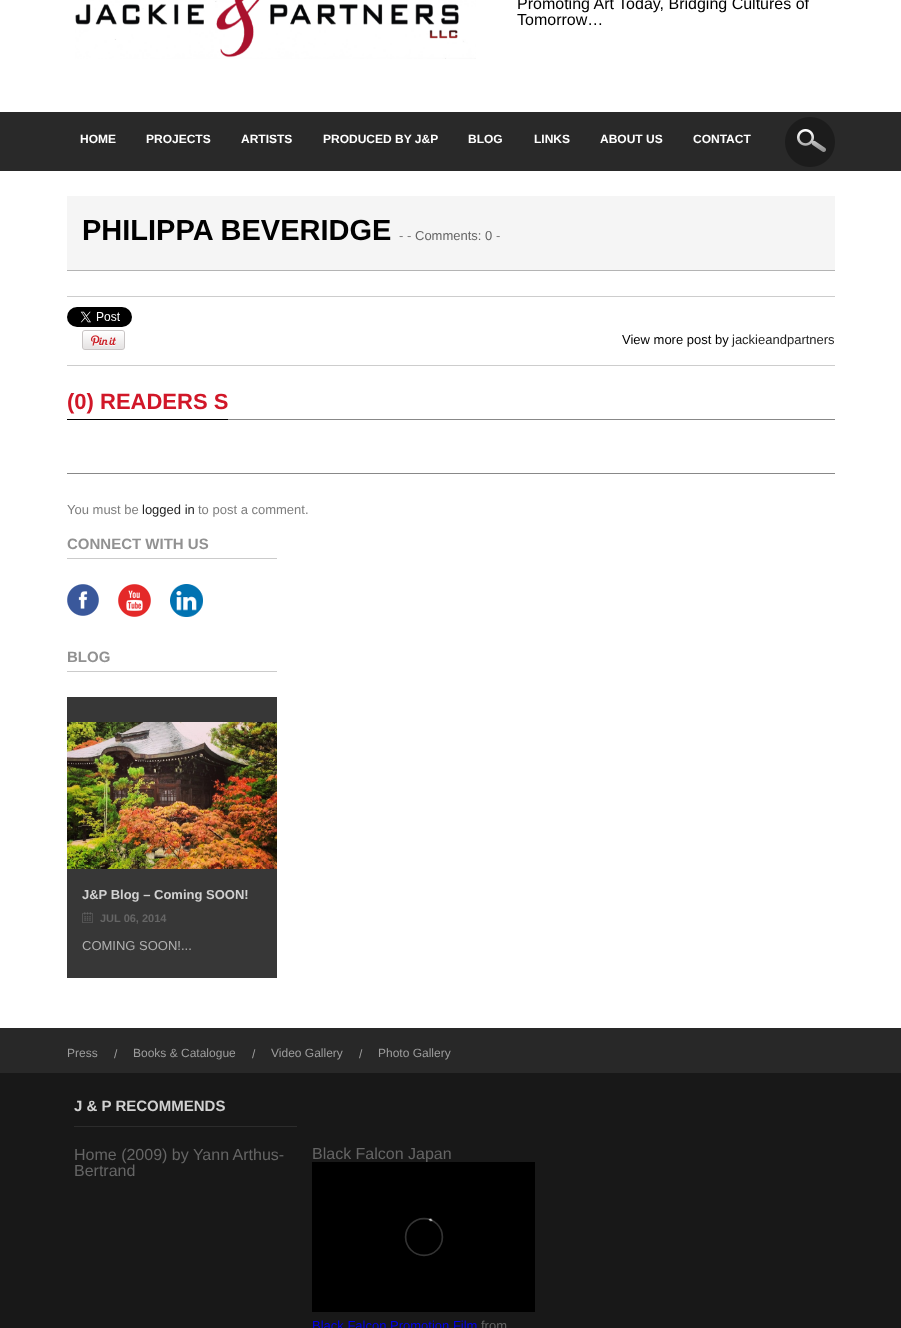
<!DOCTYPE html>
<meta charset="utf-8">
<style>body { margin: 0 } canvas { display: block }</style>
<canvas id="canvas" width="901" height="1328"></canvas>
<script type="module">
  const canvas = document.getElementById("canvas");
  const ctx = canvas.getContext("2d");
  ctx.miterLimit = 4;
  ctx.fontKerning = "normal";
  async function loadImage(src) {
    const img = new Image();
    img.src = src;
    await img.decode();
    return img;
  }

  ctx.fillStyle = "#ffffff";
  ctx.fillRect(0, 0, 901, 1328);
  ctx.drawImage(await loadImage("img1.png"), 75, 0, 401, 59);
  ctx.font = "16px Liberation Sans";
  ctx.fillStyle = "#000000";
  ctx.fillText("Promoting Art Today, Bridging Cultures of", 517, 9);
  ctx.fillText("Tomorrow…", 517, 25);
  ctx.fillStyle = "#292929";
  ctx.fillRect(0, 112, 901, 59);
  ctx.font = "bold 12px Liberation Sans";
  ctx.fillStyle = "#ffffff";
  ctx.fillText("HOME", 80, 143);
  ctx.fillText("PROJECTS", 146, 143);
  ctx.fillText("ARTISTS", 241, 143);
  ctx.fillText("PRODUCED BY J&P", 323, 143);
  ctx.fillText("BLOG", 468, 143);
  ctx.fillText("LINKS", 534, 143);
  ctx.fillText("ABOUT US", 600, 143);
  ctx.fillText("CONTACT", 693, 143);
  ctx.drawImage(await loadImage("img2.png"), 785, 117, 50, 50);
  ctx.fillStyle = "#f5f5f5";
  ctx.fillRect(67, 196, 768, 74);
  ctx.fillStyle = "#b4b4b4";
  ctx.fillRect(67, 270, 768, 1);
  ctx.font = "bold 29px Liberation Sans";
  ctx.fillStyle = "#000000";
  ctx.fillText("PHILIPPA BEVERIDGE", 82, 240);
  ctx.font = "13px Liberation Sans";
  ctx.fillStyle = "#7e7e7e";
  ctx.fillText("- -", 399, 240);
  ctx.fillStyle = "#656565";
  ctx.fillText("Comments: 0", 415, 240);
  ctx.fillStyle = "#7e7e7e";
  ctx.fillText("-", 496, 240);
  ctx.fillStyle = "#cdcdcd";
  ctx.fillRect(67, 296, 768, 1);
  ctx.fillRect(67, 365, 768, 1);
  ctx.drawImage(await loadImage("img3.png"), 67, 307, 65, 20);
  ctx.drawImage(await loadImage("img4.png"), 82, 330, 43, 20);
  ctx.fillStyle = "#000000";
  ctx.fillText("View more post by", 622, 344);
  ctx.fillStyle = "#242424";
  ctx.fillText("jackieandpartners", 732, 344);
  ctx.fillStyle = "#888888";
  ctx.fillRect(228, 419, 607, 1);
  ctx.fillStyle = "#000000";
  ctx.fillRect(67, 419, 161, 1);
  ctx.font = "bold 22px Liberation Sans";
  ctx.fillStyle = "#d11728";
  ctx.fillText("(0) READERS S", 67, 409);
  ctx.fillStyle = "#888888";
  ctx.fillRect(67, 473, 768, 1);
  ctx.font = "13px Liberation Sans";
  ctx.fillStyle = "#7e7e7e";
  ctx.fillText("You must be", 67, 514);
  ctx.fillStyle = "#242424";
  ctx.fillText("logged in", 142, 514);
  ctx.fillStyle = "#7e7e7e";
  ctx.fillText("to post a comment.", 198, 514);
  ctx.fillStyle = "#cbcbcb";
  ctx.fillRect(67, 558, 210, 1);
  ctx.font = "bold 15px Liberation Sans";
  ctx.fillStyle = "#919191";
  ctx.fillText("CONNECT WITH US", 67, 549);
  ctx.drawImage(await loadImage("img5.png"), 67, 584, 32, 32);
  ctx.drawImage(await loadImage("img6.png"), 118, 584, 33, 33);
  ctx.drawImage(await loadImage("img7.png"), 170, 584, 33, 33);
  ctx.fillStyle = "#cbcbcb";
  ctx.fillRect(67, 671, 210, 1);
  ctx.fillStyle = "#919191";
  ctx.fillText("BLOG", 67, 662);
  ctx.fillStyle = "#373737";
  ctx.fillRect(67, 697, 210, 281);
  ctx.drawImage(await loadImage("img8.png"), 67, 722, 210, 147);
  ctx.font = "bold 13px Liberation Sans";
  ctx.fillStyle = "#d1d1d1";
  ctx.fillText("J&P Blog – Coming SOON!", 82, 899);
  ctx.drawImage(await loadImage("img9.png"), 82, 912, 11, 11);
  ctx.font = "bold 11px Liberation Sans";
  ctx.fillStyle = "#656565";
  ctx.fillText("JUL 06, 2014", 100, 922);
  ctx.font = "13px Liberation Sans";
  ctx.fillStyle = "#b1b1b1";
  ctx.fillText("COMING SOON!...", 82, 950);
  ctx.fillStyle = "#282828";
  ctx.fillRect(0, 1028, 901, 45);
  ctx.font = "12px Liberation Sans";
  ctx.fillStyle = "#9d9d9d";
  ctx.fillText("Press", 67, 1057);
  ctx.fillText("/", 114, 1058);
  ctx.fillText("Books & Catalogue", 133, 1057);
  ctx.fillText("/", 252, 1058);
  ctx.fillText("Video Gallery", 271, 1057);
  ctx.fillText("/", 359, 1058);
  ctx.fillText("Photo Gallery", 378, 1057);
  ctx.fillStyle = "#181818";
  ctx.fillRect(0, 1073, 901, 255);
  ctx.fillStyle = "#2c2c2c";
  ctx.fillRect(74, 1126, 223, 1);
  ctx.font = "bold 15px Liberation Sans";
  ctx.fillStyle = "#d1d1d1";
  ctx.fillText("J & P RECOMMENDS", 74, 1111);
  ctx.font = "16px Liberation Sans";
  ctx.fillStyle = "#656565";
  ctx.fillText("Home (2009) by Yann Arthus-", 74, 1160);
  ctx.fillText("Bertrand", 74, 1176);
  ctx.fillText("Black Falcon Japan", 312, 1159);
  ctx.drawImage(await loadImage("img10.png"), 312, 1162, 223, 150);
  ctx.font = "13px Liberation Sans";
  ctx.fillStyle = "#0000ee";
  ctx.fillText("Black Falcon Promotion Film", 312, 1330);
  ctx.fillStyle = "#656565";
  ctx.fillText("from", 481, 1330);
</script>
